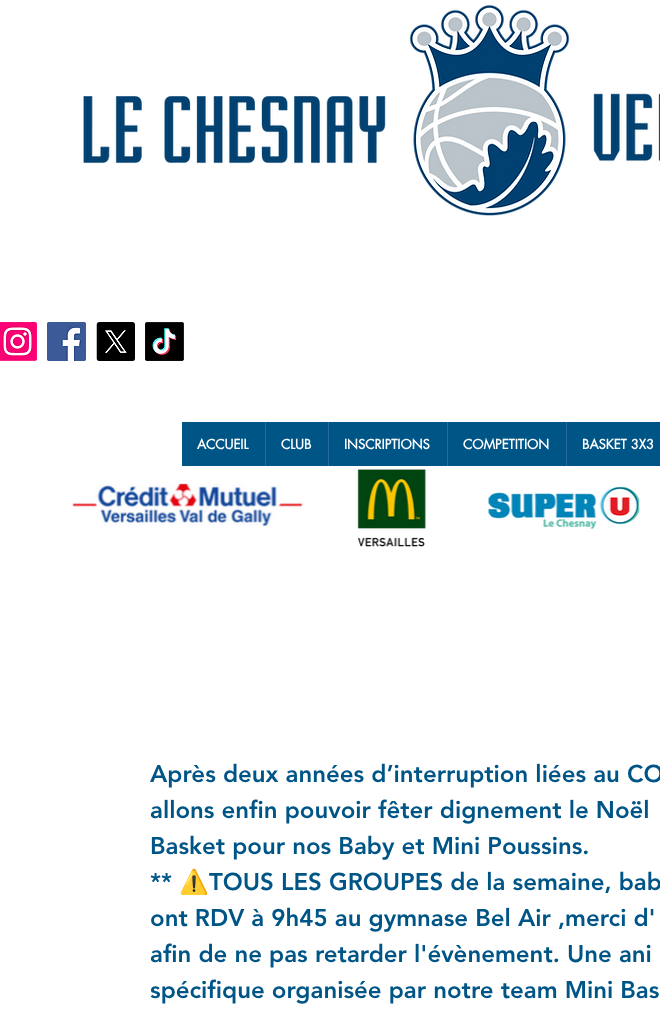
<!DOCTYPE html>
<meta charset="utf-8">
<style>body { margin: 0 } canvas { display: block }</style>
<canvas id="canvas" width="660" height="1020"></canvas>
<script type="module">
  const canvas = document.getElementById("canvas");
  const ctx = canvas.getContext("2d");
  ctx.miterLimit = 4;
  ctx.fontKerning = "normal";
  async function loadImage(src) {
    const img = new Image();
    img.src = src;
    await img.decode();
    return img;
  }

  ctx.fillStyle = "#ffffff";
  ctx.fillRect(0, 0, 660, 1020);
  ctx.drawImage(await loadImage("img1.png"), 83, 4, 577, 212);
  ctx.drawImage(await loadImage("img2.png"), 0, 322, 37, 39);
  ctx.drawImage(await loadImage("img3.png"), 47, 322, 39, 39);
  ctx.drawImage(await loadImage("img4.png"), 96, 322, 39, 39);
  ctx.drawImage(await loadImage("img5.png"), 145, 322, 39, 39);
  ctx.fillStyle = "#005587";
  ctx.fillRect(182, 422, 478, 44);
  ctx.font = "bold 13px futura";
  ctx.fillStyle = "#ffffff";
  ctx.fillText("ACCUEIL", 197, 449);
  ctx.fillStyle = "#2b689c";
  ctx.fillRect(265, 422, 1, 44);
  ctx.fillStyle = "#ffffff";
  ctx.fillText("CLUB", 281, 449);
  ctx.fillStyle = "#2b689c";
  ctx.fillRect(328, 422, 1, 44);
  ctx.fillStyle = "#ffffff";
  ctx.fillText("INSCRIPTIONS", 344, 449);
  ctx.fillStyle = "#2b689c";
  ctx.fillRect(447, 422, 1, 44);
  ctx.fillStyle = "#ffffff";
  ctx.fillText("COMPETITION", 463, 449);
  ctx.fillStyle = "#2b689c";
  ctx.fillRect(566, 422, 1, 44);
  ctx.fillStyle = "#ffffff";
  ctx.fillText("BASKET 3X3", 582, 449);
  ctx.drawImage(await loadImage("img6.png"), 72, 483, 231, 44);
  ctx.drawImage(await loadImage("img7.png"), 357, 469, 69, 78);
  ctx.drawImage(await loadImage("img8.png"), 488, 486, 152, 43);
  ctx.font = "900 24px 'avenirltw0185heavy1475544'";
  ctx.fillStyle = "#005587";
  ctx.fillText("Après deux années d’interruption liées au CO", 150, 782);
  ctx.fillText("allons enfin pouvoir fêter dignement le Noël", 150, 818);
  ctx.fillText("Basket pour nos Baby et Mini Poussins.", 150, 854);
  ctx.fillText("**", 150, 890);
  ctx.font = "24px Noto Color Emoji";
  ctx.fillText("⚠️", 179, 890);
  ctx.font = "900 24px 'avenirltw0185heavy1475544'";
  ctx.fillText("TOUS LES GROUPES de la semaine, bab", 209, 890);
  ctx.fillText("ont RDV à 9h45 au gymnase Bel Air ,merci d'", 150, 926);
  ctx.fillText("afin de ne pas retarder l'évènement. Une ani", 150, 962);
  ctx.fillText("spécifique organisée par notre team Mini Bas", 150, 998);
</script>
